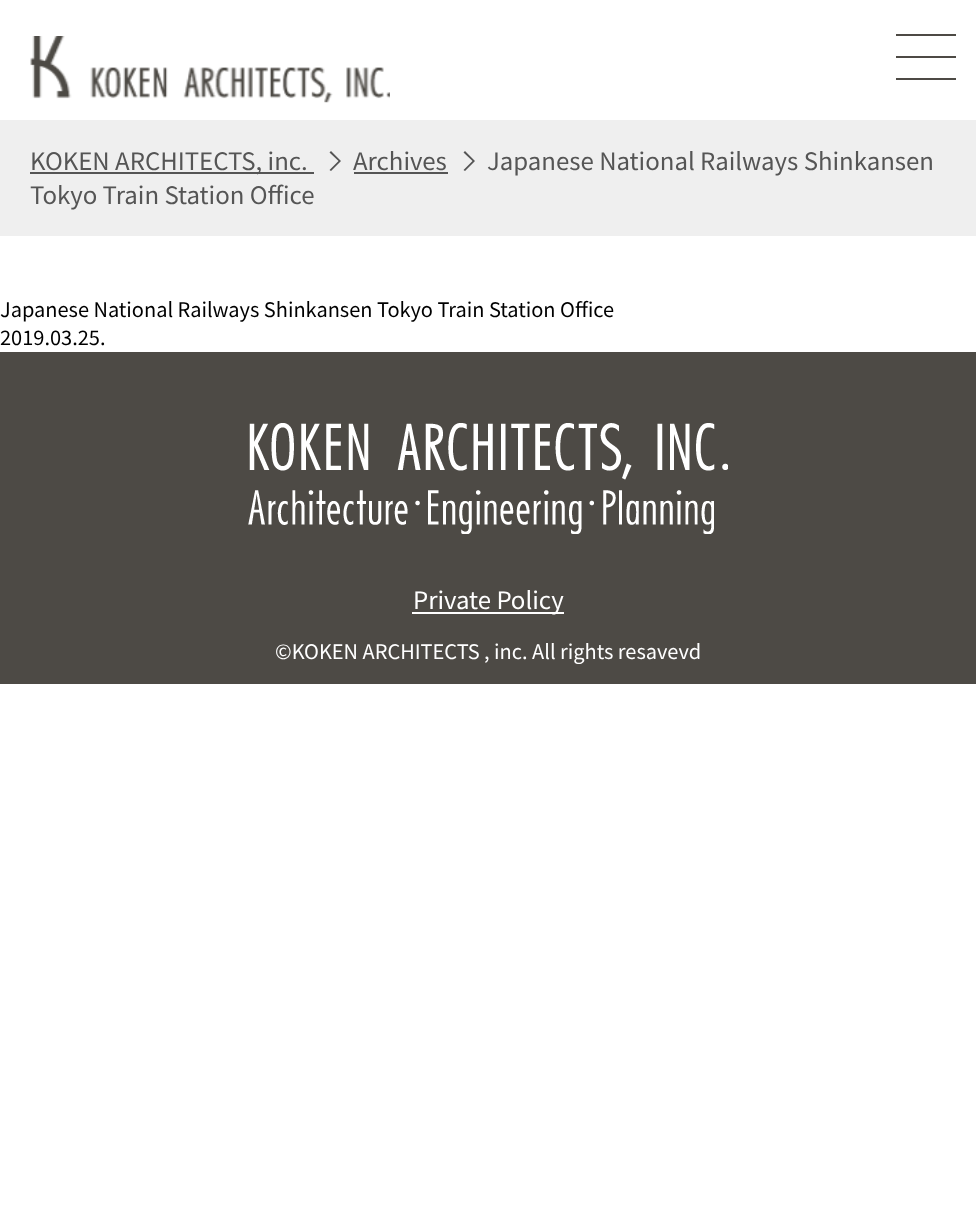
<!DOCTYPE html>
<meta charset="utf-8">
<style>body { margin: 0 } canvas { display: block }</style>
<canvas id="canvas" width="976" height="1224"></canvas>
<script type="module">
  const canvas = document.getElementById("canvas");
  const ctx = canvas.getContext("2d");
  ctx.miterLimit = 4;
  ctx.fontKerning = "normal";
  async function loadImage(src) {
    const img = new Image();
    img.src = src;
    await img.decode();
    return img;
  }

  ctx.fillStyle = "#ffffff";
  ctx.fillRect(0, 0, 976, 1224);
  ctx.drawImage(await loadImage("img1.png"), 30, 36, 360, 67);
  ctx.fillStyle = "#4d4a45";
  ctx.fillRect(896, 34, 60, 2);
  ctx.fillRect(896, 56, 60, 2);
  ctx.fillRect(896, 78, 60, 2);
  ctx.fillStyle = "#efefef";
  ctx.fillRect(0, 120, 976, 116);
  ctx.fillStyle = "#555555";
  ctx.fillRect(30, 172, 284, 2);
  ctx.font = "100 24px Noto Sans JP";
  ctx.fillText("KOKEN ARCHITECTS, inc.", 30, 170);
  ctx.beginPath();
  ctx.moveTo(331, 151);
  ctx.lineTo(329.5, 152.5);
  ctx.lineTo(338.5, 161);
  ctx.lineTo(329.5, 170);
  ctx.lineTo(331, 171);
  ctx.lineTo(341, 161);
  ctx.closePath();
  ctx.fill();
  ctx.fillText("Archives", 353, 170);
  ctx.fillRect(354, 172, 94, 2);
  ctx.beginPath();
  ctx.moveTo(465, 151);
  ctx.lineTo(463.5, 152.5);
  ctx.lineTo(472.5, 161);
  ctx.lineTo(463.5, 170);
  ctx.lineTo(465, 171);
  ctx.lineTo(475, 161);
  ctx.closePath();
  ctx.fill();
  ctx.fillText("Japanese National Railways Shinkansen", 487, 170);
  ctx.fillText("Tokyo Train Station Office", 30, 204);
  ctx.font = "100 20px Noto Sans JP";
  ctx.fillStyle = "#000000";
  ctx.fillText("Japanese National Railways Shinkansen Tokyo Train Station Office", 0, 317);
  ctx.fillText("2019.03.25.", 0, 345);
  ctx.fillStyle = "#4d4a45";
  ctx.fillRect(0, 352, 976, 332);
  ctx.drawImage(await loadImage("img2.png"), 248, 423, 480, 111);
  ctx.fillStyle = "#ffffff";
  ctx.fillRect(412, 612, 152, 2);
  ctx.font = "100 24px Noto Sans JP";
  ctx.fillText("Private Policy", 413, 609);
  ctx.font = "100 20px Noto Sans JP";
  ctx.fillText("©KOKEN ARCHITECTS , inc. All rights resavevd", 275, 659);
</script>
